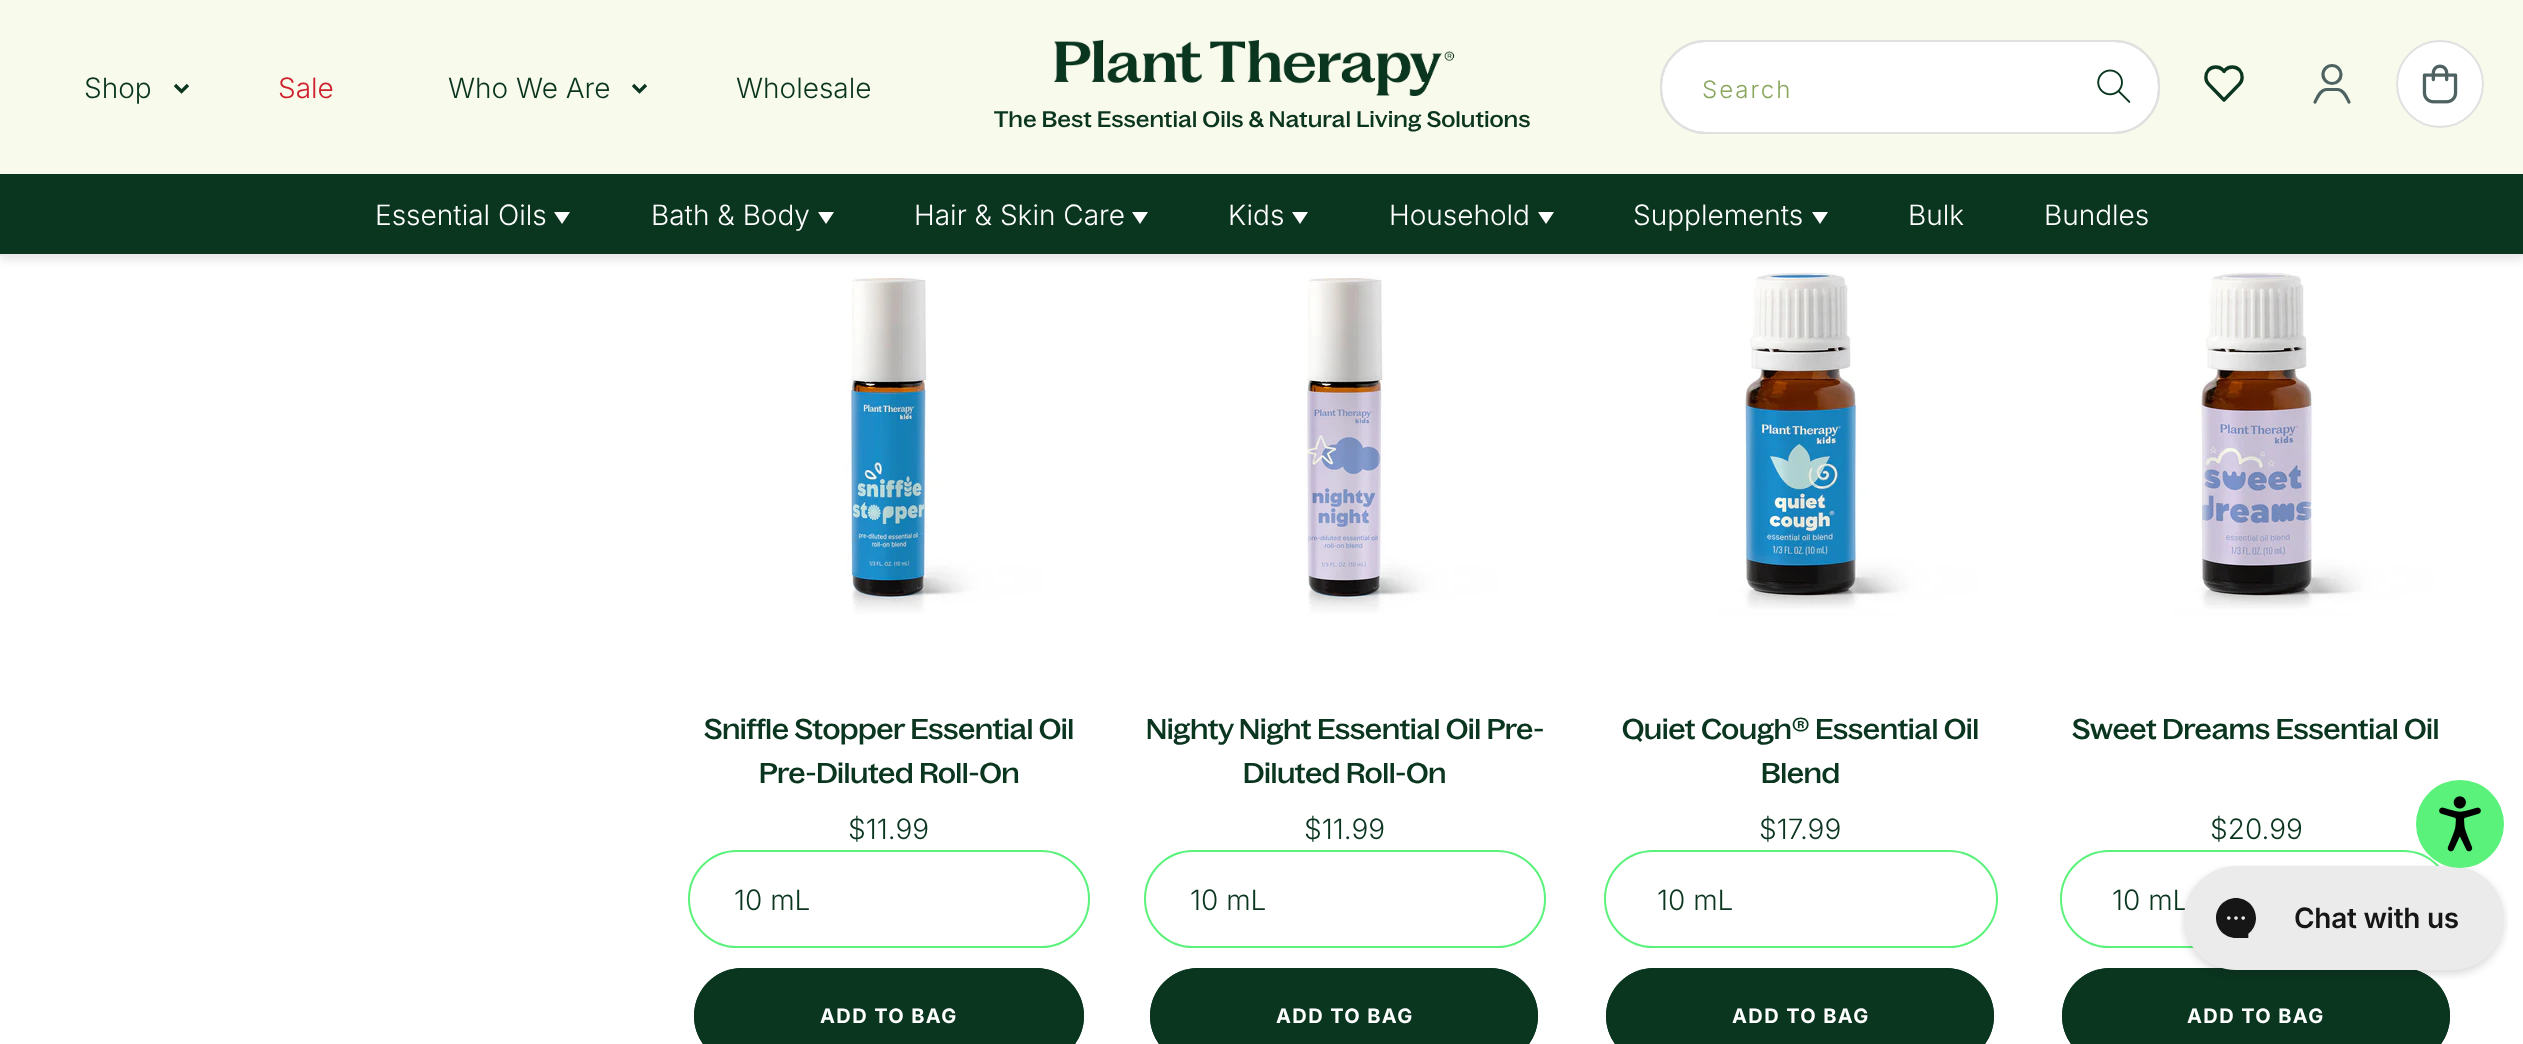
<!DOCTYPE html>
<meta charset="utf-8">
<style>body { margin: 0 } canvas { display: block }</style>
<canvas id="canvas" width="2523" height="1044"></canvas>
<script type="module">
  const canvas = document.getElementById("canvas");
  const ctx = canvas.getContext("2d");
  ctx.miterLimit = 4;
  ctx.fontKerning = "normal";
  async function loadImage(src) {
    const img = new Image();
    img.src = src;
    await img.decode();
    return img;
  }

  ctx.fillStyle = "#ffffff";
  ctx.fillRect(0, 0, 2523, 1044);
  ctx.drawImage(await loadImage("img4.png"), 708, 256, 360, 360);
  ctx.drawImage(await loadImage("img5.png"), 1164, 256, 360, 360);
  ctx.drawImage(await loadImage("img6.png"), 1620, 256, 360, 360);
  ctx.drawImage(await loadImage("img7.png"), 2076, 256, 360, 360);
  ctx.fillStyle = "rgba(0, 0, 0, 0.1)";
  ctx.filter = "blur(4px)";
  ctx.beginPath();
  ctx.rect(0, 4, 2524, 256);
  ctx.fill();
  ctx.filter = "none";
  ctx.fillStyle = "#ebebeb";
  ctx.fillRect(0, 254, 2523, 2);
  ctx.fillStyle = "#f8faeb";
  ctx.fillRect(0, 0, 2523, 174);
  ctx.font = "300 28px Inter";
  ctx.fillStyle = "#0a351f";
  ctx.fillText("Shop", 84, 98);
  ctx.beginPath();
  ctx.moveTo(175, 85);
  ctx.lineTo(181.5, 91.5);
  ctx.lineTo(188, 85);
  ctx.strokeStyle = "#0a351f";
  ctx.lineWidth = 3.3;
  ctx.stroke();
  ctx.fillStyle = "#cf202e";
  ctx.fillText("Sale", 278, 98);
  ctx.fillStyle = "#0a351f";
  ctx.fillText("Who We Are", 448, 98);
  ctx.beginPath();
  ctx.moveTo(633, 85);
  ctx.lineTo(639.5, 91.5);
  ctx.lineTo(646, 85);
  ctx.stroke();
  ctx.fillText("Wholesale", 736, 98);
  ctx.fillStyle = "#ffffff";
  ctx.beginPath();
  ctx.roundRect(1662, 42, 496, 90, 44);
  ctx.fill();
  ctx.drawImage(await loadImage("img1.png"), 2097, 69, 34, 34);
  ctx.beginPath();
  ctx.roundRect(1661, 41, 498, 92, 45);
  ctx.strokeStyle = "#e0e0e0";
  ctx.lineWidth = 2;
  ctx.stroke();
  ctx.beginPath();
  ctx.roundRect(1661, 41, 498, 92, 45);
  ctx.stroke();
  ctx.letterSpacing = "2px";
  ctx.font = "300 24px Inter";
  ctx.fillStyle = "#89a65d";
  ctx.fillText("Search", 1702, 98);
  ctx.beginPath();
  ctx.moveTo(2223, 70);
  ctx.bezierCurveTo(2219, 66, 2212.5, 66, 2208.5, 70);
  ctx.bezierCurveTo(2205, 74, 2205, 80.5, 2208.5, 84);
  ctx.lineTo(2224, 100);
  ctx.lineTo(2239.5, 84);
  ctx.bezierCurveTo(2243, 80.5, 2243, 74, 2239.5, 70);
  ctx.bezierCurveTo(2235.5, 66, 2229, 66, 2225, 70);
  ctx.lineTo(2224, 71.5);
  ctx.closePath();
  ctx.strokeStyle = "#0a351f";
  ctx.lineWidth = 3.3;
  ctx.lineCap = "round";
  ctx.lineJoin = "round";
  ctx.stroke();
  ctx.beginPath();
  ctx.arc(2332, 74.5, 9, 0, Math.PI * 2);
  ctx.strokeStyle = "#4e6262";
  ctx.lineWidth = 3.2;
  ctx.stroke();
  ctx.beginPath();
  ctx.moveTo(2349, 102);
  ctx.bezierCurveTo(2346.5, 97.5, 2344, 90, 2338, 89.5);
  ctx.lineTo(2326, 89.5);
  ctx.bezierCurveTo(2320, 90, 2317.5, 97.5, 2315, 102);
  ctx.stroke();
  ctx.fillStyle = "#ffffff";
  ctx.beginPath();
  ctx.arc(2440, 84, 43, 0, Math.PI * 2);
  ctx.fill();
  ctx.strokeStyle = "#e0e0e0";
  ctx.lineWidth = 2;
  ctx.stroke();
  ctx.drawImage(await loadImage("img2.png"), 2422, 64, 36, 40);
  ctx.drawImage(await loadImage("img3.png"), 1054, 40, 401, 56);
  ctx.letterSpacing = "0.45px";
  ctx.font = "500 22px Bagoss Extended";
  ctx.fillStyle = "#0a351f";
  ctx.fillText("The Best Essential Oils & Natural Living Solutions", 994, 127);
  ctx.fillRect(0, 174, 2523, 80);
  ctx.letterSpacing = "0px";
  ctx.font = "300 28px Inter";
  ctx.fillStyle = "#ffffff";
  ctx.fillText("Essential Oils", 375, 225);
  ctx.beginPath();
  ctx.moveTo(562, 224);
  ctx.lineTo(554, 212);
  ctx.lineTo(570, 212);
  ctx.closePath();
  ctx.fill();
  ctx.fillText("Bath & Body", 651, 225);
  ctx.beginPath();
  ctx.moveTo(826, 224);
  ctx.lineTo(818, 212);
  ctx.lineTo(834, 212);
  ctx.closePath();
  ctx.fill();
  ctx.fillText("Hair & Skin Care", 914, 225);
  ctx.beginPath();
  ctx.moveTo(1140, 224);
  ctx.lineTo(1132, 212);
  ctx.lineTo(1148, 212);
  ctx.closePath();
  ctx.fill();
  ctx.fillText("Kids", 1228, 225);
  ctx.beginPath();
  ctx.moveTo(1300, 224);
  ctx.lineTo(1292, 212);
  ctx.lineTo(1308, 212);
  ctx.closePath();
  ctx.fill();
  ctx.fillText("Household", 1389, 225);
  ctx.beginPath();
  ctx.moveTo(1546, 224);
  ctx.lineTo(1538, 212);
  ctx.lineTo(1554, 212);
  ctx.closePath();
  ctx.fill();
  ctx.fillText("Supplements", 1633, 225);
  ctx.beginPath();
  ctx.moveTo(1820, 224);
  ctx.lineTo(1812, 212);
  ctx.lineTo(1828, 212);
  ctx.closePath();
  ctx.fill();
  ctx.fillText("Bulk", 1908, 225);
  ctx.fillText("Bundles", 2044, 225);
  ctx.font = "500 28px Bagoss Extended";
  ctx.fillStyle = "#0a351f";
  ctx.fillText("Sniffle Stopper Essential Oil", 704, 739);
  ctx.fillText("Pre-Diluted Roll-On", 759, 783);
  ctx.font = "300 28px Inter";
  ctx.fillText("$11.99", 848, 839);
  ctx.beginPath();
  ctx.roundRect(689, 851, 400, 96, 48);
  ctx.strokeStyle = "#5af27b";
  ctx.lineJoin = "miter";
  ctx.stroke();
  ctx.fillText("10 mL", 734, 910);
  ctx.beginPath();
  ctx.roundRect(694, 968, 390, 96, 48);
  ctx.fill();
  ctx.beginPath();
  ctx.roundRect(695.5, 969.5, 387, 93, 46.5);
  ctx.strokeStyle = "#0a351f";
  ctx.lineWidth = 3;
  ctx.stroke();
  ctx.letterSpacing = "1.4px";
  ctx.font = "bold 20px Inter";
  ctx.fillStyle = "#ffffff";
  ctx.fillText("ADD TO BAG", 820, 1023);
  ctx.letterSpacing = "0px";
  ctx.font = "500 28px Bagoss Extended";
  ctx.fillStyle = "#0a351f";
  ctx.fillText("Nighty Night Essential Oil Pre-", 1146, 739);
  ctx.fillText("Diluted Roll-On", 1243, 783);
  ctx.font = "300 28px Inter";
  ctx.fillText("$11.99", 1304, 839);
  ctx.beginPath();
  ctx.roundRect(1145, 851, 400, 96, 48);
  ctx.strokeStyle = "#5af27b";
  ctx.lineWidth = 2;
  ctx.stroke();
  ctx.fillText("10 mL", 1190, 910);
  ctx.beginPath();
  ctx.roundRect(1150, 968, 388, 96, 48);
  ctx.fill();
  ctx.beginPath();
  ctx.roundRect(1151.5, 969.5, 385, 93, 46.5);
  ctx.strokeStyle = "#0a351f";
  ctx.lineWidth = 3;
  ctx.stroke();
  ctx.letterSpacing = "1.4px";
  ctx.font = "bold 20px Inter";
  ctx.fillStyle = "#ffffff";
  ctx.fillText("ADD TO BAG", 1276, 1023);
  ctx.letterSpacing = "0px";
  ctx.font = "500 28px Bagoss Extended";
  ctx.fillStyle = "#0a351f";
  ctx.fillText("Quiet Cough® Essential Oil", 1622, 739);
  ctx.fillText("Blend", 1761, 783);
  ctx.font = "300 28px Inter";
  ctx.fillText("$17.99", 1759, 839);
  ctx.beginPath();
  ctx.roundRect(1605, 851, 392, 96, 48);
  ctx.strokeStyle = "#5af27b";
  ctx.lineWidth = 2;
  ctx.stroke();
  ctx.fillText("10 mL", 1657, 910);
  ctx.beginPath();
  ctx.roundRect(1606, 968, 388, 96, 48);
  ctx.fill();
  ctx.beginPath();
  ctx.roundRect(1607.5, 969.5, 385, 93, 46.5);
  ctx.strokeStyle = "#0a351f";
  ctx.lineWidth = 3;
  ctx.stroke();
  ctx.letterSpacing = "1.4px";
  ctx.font = "bold 20px Inter";
  ctx.fillStyle = "#ffffff";
  ctx.fillText("ADD TO BAG", 1732, 1023);
  ctx.letterSpacing = "0px";
  ctx.font = "500 28px Bagoss Extended";
  ctx.fillStyle = "#0a351f";
  ctx.fillText("Sweet Dreams Essential Oil", 2072, 739);
  ctx.font = "300 28px Inter";
  ctx.fillText("$20.99", 2210, 839);
  ctx.beginPath();
  ctx.roundRect(2061, 851, 390, 96, 48);
  ctx.strokeStyle = "#5af27b";
  ctx.lineWidth = 2;
  ctx.stroke();
  ctx.fillText("10 mL", 2112, 910);
  ctx.beginPath();
  ctx.roundRect(2062, 968, 388, 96, 48);
  ctx.fill();
  ctx.beginPath();
  ctx.roundRect(2063.5, 969.5, 385, 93, 46.5);
  ctx.strokeStyle = "#0a351f";
  ctx.lineWidth = 3;
  ctx.stroke();
  ctx.letterSpacing = "1.4px";
  ctx.font = "bold 20px Inter";
  ctx.fillStyle = "#ffffff";
  ctx.fillText("ADD TO BAG", 2187, 1023);
  ctx.drawImage(await loadImage("img9.png"), 2180, 865, 328, 114);
  ctx.fillStyle = "#5af27b";
  ctx.beginPath();
  ctx.arc(2460, 824, 44, 0, Math.PI * 2);
  ctx.fill();
  ctx.drawImage(await loadImage("img8.png"), 2439, 796, 42, 56);
</script>
